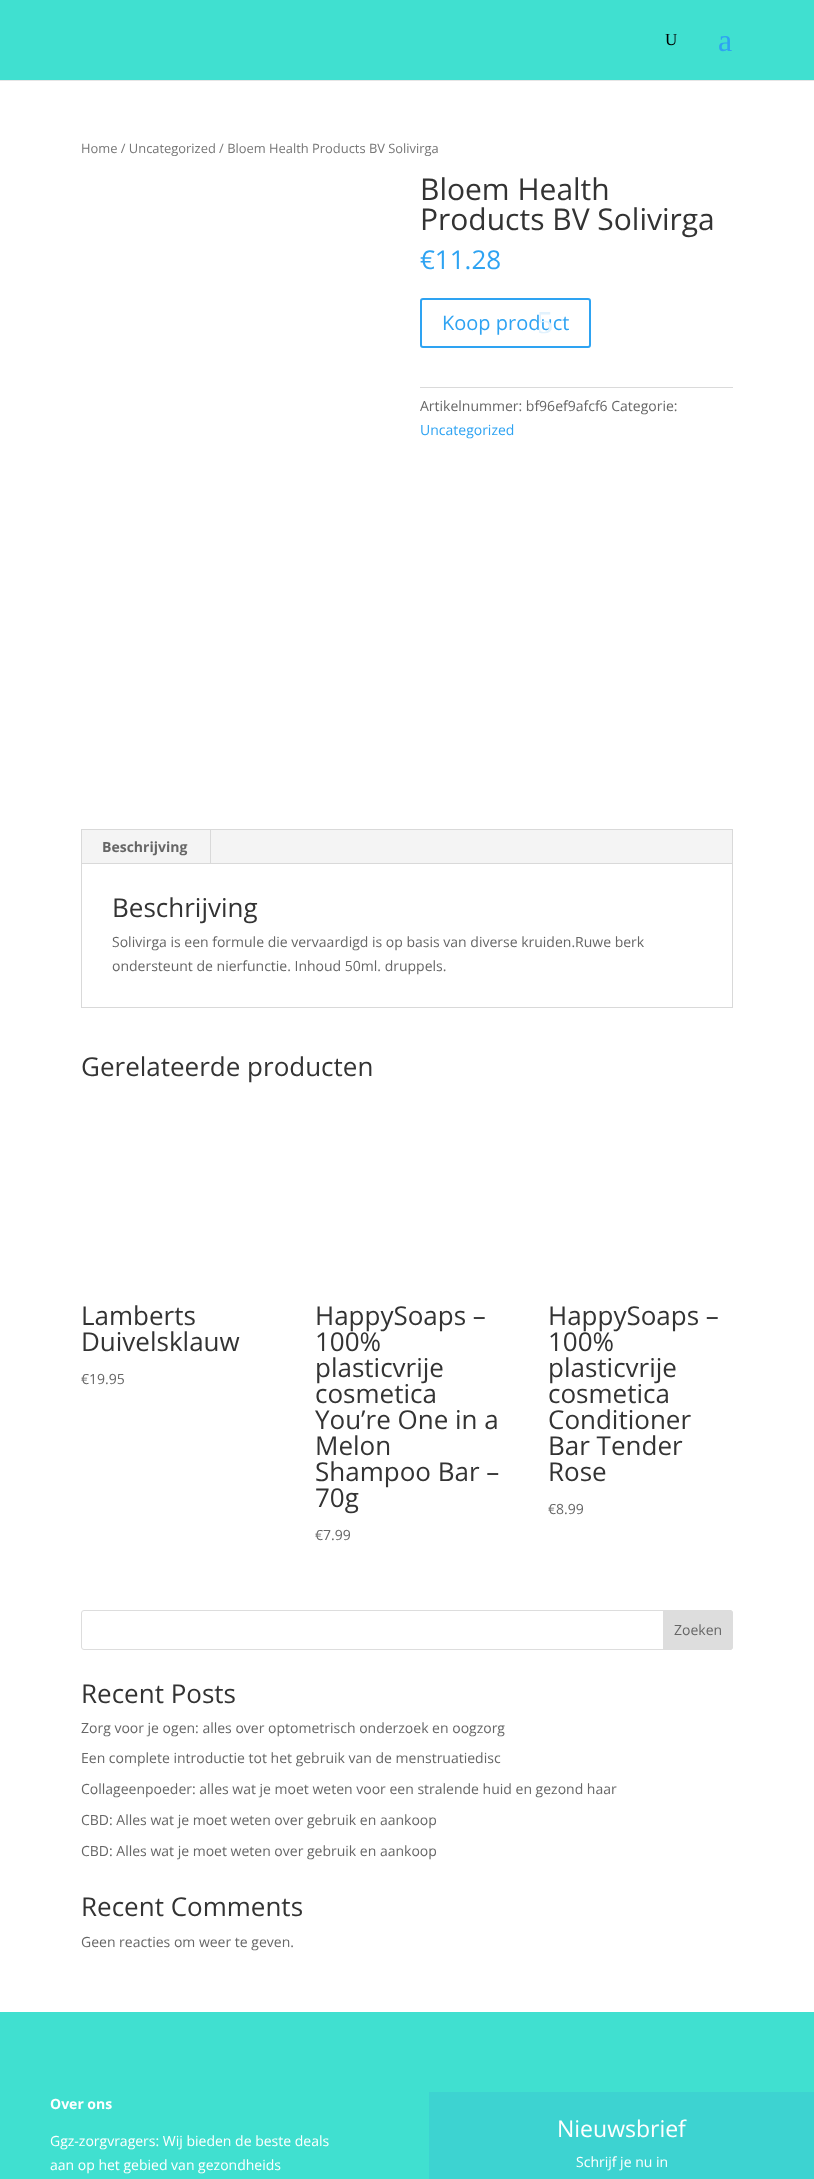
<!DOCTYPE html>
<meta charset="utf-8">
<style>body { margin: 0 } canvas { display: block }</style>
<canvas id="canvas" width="814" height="2179"></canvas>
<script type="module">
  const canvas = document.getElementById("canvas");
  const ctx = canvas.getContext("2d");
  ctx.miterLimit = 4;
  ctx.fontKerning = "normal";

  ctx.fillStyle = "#ffffff";
  ctx.fillRect(0, 0, 814, 2179);
  ctx.fillStyle = "#e6e6e6";
  ctx.fillRect(0, 80, 814, 1);
  ctx.fillStyle = "#40e0d0";
  ctx.fillRect(0, 0, 814, 80);
  ctx.font = "17px Liberation Serif";
  ctx.fillStyle = "#000000";
  ctx.fillText("U", 665, 45);
  ctx.font = "32px Liberation Serif";
  ctx.fillStyle = "#2ea3f2";
  ctx.fillText("a", 718, 51);
  ctx.font = "12.9px Open Sans";
  ctx.fillStyle = "#767676";
  ctx.fillText("Home / Uncategorized / Bloem Health Products BV Solivirga", 81, 153);
  ctx.font = "30px Open Sans";
  ctx.fillStyle = "#333333";
  ctx.fillText("Bloem Health", 420, 200);
  ctx.fillText("Products BV Solivirga", 420, 230);
  ctx.font = "26px Open Sans";
  ctx.fillStyle = "#2ea3f2";
  ctx.fillText("€11.28", 420, 269);
  ctx.beginPath();
  ctx.roundRect(421, 299, 169, 48, 2);
  ctx.strokeStyle = "#2ea3f2";
  ctx.lineWidth = 2;
  ctx.stroke();
  ctx.font = "20px Open Sans";
  ctx.fillText("Koop product", 442, 330);
  ctx.font = "32px Liberation Serif";
  ctx.fillStyle = "#e2f2fd";
  ctx.fillText("5", 537, 333);
  ctx.fillStyle = "#dadada";
  ctx.fillRect(420, 387, 313, 1);
  ctx.font = "14px Open Sans";
  ctx.fillStyle = "#666666";
  ctx.fillText("Artikelnummer: bf96ef9afcf6 Categorie:", 420, 411);
  ctx.fillStyle = "#2ea3f2";
  ctx.fillText("Uncategorized", 420, 435);
  ctx.strokeStyle = "#d9d9d9";
  ctx.lineWidth = 1;
  ctx.strokeRect(81.5, 829.5, 651, 178);
  ctx.fillStyle = "#f4f4f4";
  ctx.fillRect(82, 830, 650, 33);
  ctx.fillStyle = "#d9d9d9";
  ctx.fillRect(210, 830, 1, 34);
  ctx.font = "bold 14px Open Sans";
  ctx.fillStyle = "#666666";
  ctx.fillText("Beschrijving", 102, 852);
  ctx.fillStyle = "#d9d9d9";
  ctx.fillRect(82, 863, 650, 1);
  ctx.font = "26px Open Sans";
  ctx.fillStyle = "#333333";
  ctx.fillText("Beschrijving", 112, 917);
  ctx.font = "14px Open Sans";
  ctx.fillStyle = "#666666";
  ctx.fillText("Solivirga is een formule die vervaardigd is op basis van diverse kruiden.Ruwe berk", 112, 947);
  ctx.fillText("ondersteunt de nierfunctie. Inhoud 50ml. druppels.", 112, 971);
  ctx.font = "26px Open Sans";
  ctx.fillStyle = "#333333";
  ctx.fillText("Gerelateerde producten", 81, 1076);
  ctx.fillText("Lamberts", 81, 1325);
  ctx.fillText("Duivelsklauw", 81, 1351);
  ctx.font = "14px Open Sans";
  ctx.fillStyle = "#666666";
  ctx.fillText("€19.95", 81, 1384);
  ctx.font = "26px Open Sans";
  ctx.fillStyle = "#333333";
  ctx.fillText("HappySoaps –", 315, 1325);
  ctx.fillText("100%", 315, 1351);
  ctx.fillText("plasticvrije", 315, 1377);
  ctx.fillText("cosmetica", 315, 1403);
  ctx.fillText("You’re One in a", 315, 1429);
  ctx.fillText("Melon", 315, 1455);
  ctx.fillText("Shampoo Bar –", 315, 1481);
  ctx.fillText("70g", 315, 1507);
  ctx.font = "14px Open Sans";
  ctx.fillStyle = "#666666";
  ctx.fillText("€7.99", 315, 1540);
  ctx.font = "26px Open Sans";
  ctx.fillStyle = "#333333";
  ctx.fillText("HappySoaps –", 548, 1325);
  ctx.fillText("100%", 548, 1351);
  ctx.fillText("plasticvrije", 548, 1377);
  ctx.fillText("cosmetica", 548, 1403);
  ctx.fillText("Conditioner", 548, 1429);
  ctx.fillText("Bar Tender", 548, 1455);
  ctx.fillText("Rose", 548, 1481);
  ctx.font = "14px Open Sans";
  ctx.fillStyle = "#666666";
  ctx.fillText("€8.99", 548, 1514);
  ctx.beginPath();
  ctx.roundRect(81.5, 1610.5, 651, 39, 2.5);
  ctx.strokeStyle = "#dddddd";
  ctx.stroke();
  ctx.fillStyle = "#dddddd";
  ctx.beginPath();
  ctx.roundRect(663.5, 1610.5, 69, 39, [0, 2.5, 2.5, 0]);
  ctx.fill();
  ctx.stroke();
  ctx.fillStyle = "#666666";
  ctx.fillText("Zoeken", 674, 1635);
  ctx.font = "26px Open Sans";
  ctx.fillStyle = "#333333";
  ctx.fillText("Recent Posts", 81, 1703);
  ctx.font = "14px Open Sans";
  ctx.fillStyle = "#666666";
  ctx.fillText("Zorg voor je ogen: alles over optometrisch onderzoek en oogzorg", 81, 1733);
  ctx.fillText("Een complete introductie tot het gebruik van de menstruatiedisc", 81, 1763);
  ctx.fillText("Collageenpoeder: alles wat je moet weten voor een stralende huid en gezond haar", 81, 1794);
  ctx.fillText("CBD: Alles wat je moet weten over gebruik en aankoop", 81, 1825);
  ctx.fillText("CBD: Alles wat je moet weten over gebruik en aankoop", 81, 1856);
  ctx.font = "26px Open Sans";
  ctx.fillStyle = "#333333";
  ctx.fillText("Recent Comments", 81, 1916);
  ctx.font = "14px Open Sans";
  ctx.fillStyle = "#666666";
  ctx.fillText("Geen reacties om weer te geven.", 81, 1947);
  ctx.fillStyle = "#40e0d0";
  ctx.fillRect(0, 2012, 814, 167);
  ctx.font = "bold 14px Open Sans";
  ctx.fillStyle = "#ffffff";
  ctx.fillText("Over ons", 50, 2109);
  ctx.font = "14px Open Sans";
  ctx.fillText("Ggz-zorgvragers: Wij bieden de beste deals", 50, 2146);
  ctx.fillText("aan op het gebied van gezondheids", 50, 2170);
  ctx.fillStyle = "#3dd3d1";
  ctx.fillRect(429, 2092, 385, 87);
  ctx.font = "23px Open Sans";
  ctx.fillStyle = "#ffffff";
  ctx.fillText("Nieuwsbrief", 557, 2137);
  ctx.font = "14px Open Sans";
  ctx.fillText("Schrijf je nu in", 576, 2167);
</script>
